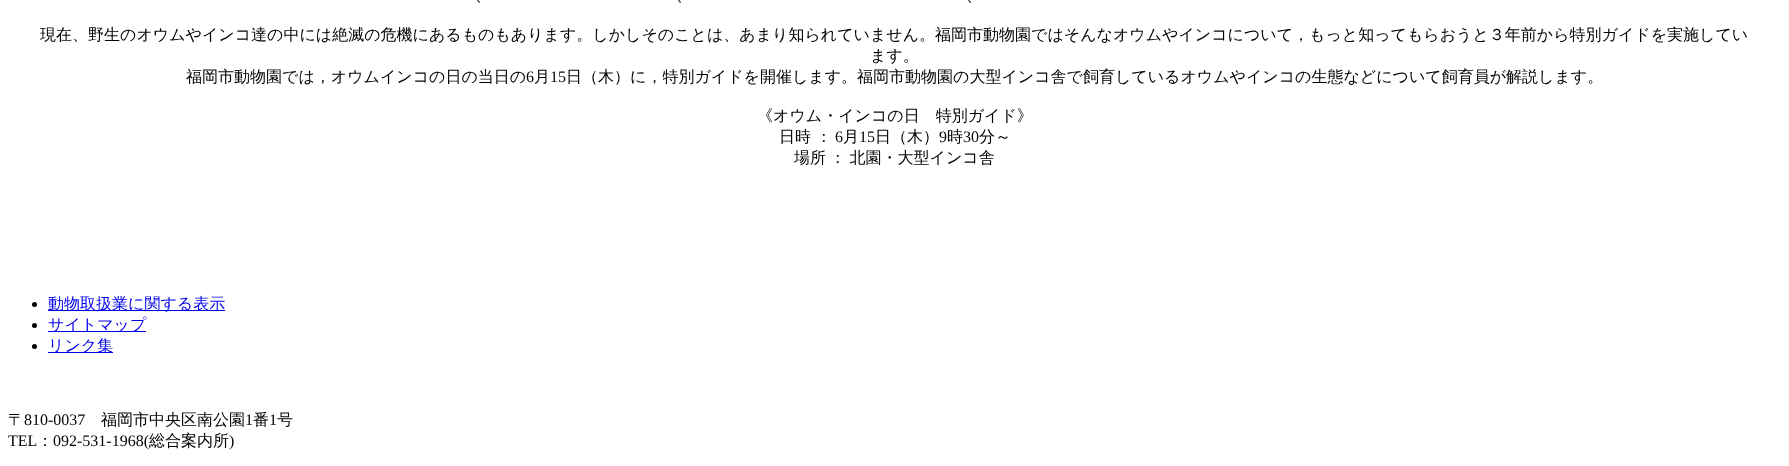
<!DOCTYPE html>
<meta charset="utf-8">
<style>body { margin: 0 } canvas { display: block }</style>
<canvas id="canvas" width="1789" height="466"></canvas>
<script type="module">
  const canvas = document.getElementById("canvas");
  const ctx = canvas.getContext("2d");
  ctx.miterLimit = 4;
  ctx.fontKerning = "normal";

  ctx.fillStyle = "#ffffff";
  ctx.fillRect(0, 0, 1789, 466);
  ctx.font = "500 16px WenQuanYi Zen Hei";
  ctx.fillStyle = "#000000";
  ctx.fillText("、", 475, 1);
  ctx.fillText("、", 676, 1);
  ctx.fillText("、", 966, 1);
  ctx.fillText("現在、野生のオウムやインコ達の中には絶滅の危機にあるものもあります。しかしそのことは、あまり知られていません。福岡市動物園ではそんなオウムやインコについて，もっと知ってもらおうと３年前から特別ガイドを実施してい", 40, 40);
  ctx.fillText("ます。", 870, 61);
  ctx.fillText("福岡市動物園では，オウムインコの日の当日の", 186, 82);
  ctx.font = "16px Liberation Serif";
  ctx.fillText("6", 526, 82);
  ctx.font = "500 16px WenQuanYi Zen Hei";
  ctx.fillText("月", 534, 82);
  ctx.font = "16px Liberation Serif";
  ctx.fillText("15", 550, 82);
  ctx.font = "500 16px WenQuanYi Zen Hei";
  ctx.fillText("日（木）に，特別ガイドを開催します。福岡市動物園の大型インコ舎で飼育しているオウムやインコの生態などについて飼育員が解説します。", 566, 82);
  ctx.fillText("《オウム・インコの日　特別ガイド》", 757, 121);
  ctx.fillText("日時 ：", 779, 142);
  ctx.font = "16px Liberation Serif";
  ctx.fillText("6", 835, 142);
  ctx.font = "500 16px WenQuanYi Zen Hei";
  ctx.fillText("月", 843, 142);
  ctx.font = "16px Liberation Serif";
  ctx.fillText("15", 859, 142);
  ctx.font = "500 16px WenQuanYi Zen Hei";
  ctx.fillText("日（木）", 875, 142);
  ctx.font = "16px Liberation Serif";
  ctx.fillText("9", 939, 142);
  ctx.font = "500 16px WenQuanYi Zen Hei";
  ctx.fillText("時", 947, 142);
  ctx.font = "16px Liberation Serif";
  ctx.fillText("30", 963, 142);
  ctx.font = "500 16px WenQuanYi Zen Hei";
  ctx.fillText("分～", 979, 142);
  ctx.wordSpacing = "-1px";
  ctx.fillText("場所 ： 北園・大型インコ舎", 794, 163);
  ctx.beginPath();
  ctx.arc(34.5, 304.5, 2.5, 0, Math.PI * 2);
  ctx.fill();
  ctx.fillStyle = "#0000ee";
  ctx.fillRect(48, 310, 177, 1);
  ctx.wordSpacing = "0px";
  ctx.fillText("動物取扱業に関する表示", 48, 309);
  ctx.fillStyle = "#000000";
  ctx.beginPath();
  ctx.arc(34.5, 325.5, 2.5, 0, Math.PI * 2);
  ctx.fill();
  ctx.fillStyle = "#0000ee";
  ctx.fillRect(48, 331, 98, 1);
  ctx.fillText("サイトマップ", 48, 330);
  ctx.fillStyle = "#000000";
  ctx.beginPath();
  ctx.arc(34.5, 346.5, 2.5, 0, Math.PI * 2);
  ctx.fill();
  ctx.fillStyle = "#0000ee";
  ctx.fillRect(48, 352, 65, 1);
  ctx.fillText("リンク集", 48, 351);
  ctx.fillStyle = "#000000";
  ctx.fillText("〒", 8, 425);
  ctx.font = "16px Liberation Serif";
  ctx.fillText("810-0037", 24, 425);
  ctx.font = "500 16px WenQuanYi Zen Hei";
  ctx.fillText("福岡市中央区南公園", 101, 425);
  ctx.font = "16px Liberation Serif";
  ctx.fillText("1", 245, 425);
  ctx.font = "500 16px WenQuanYi Zen Hei";
  ctx.fillText("番", 253, 425);
  ctx.font = "16px Liberation Serif";
  ctx.fillText("1", 269, 425);
  ctx.font = "500 16px WenQuanYi Zen Hei";
  ctx.fillText("号", 277, 425);
  ctx.font = "16px Liberation Serif";
  ctx.fillText("TEL", 8, 446);
  ctx.font = "500 16px WenQuanYi Zen Hei";
  ctx.fillText("：", 37, 446);
  ctx.font = "16px Liberation Serif";
  ctx.fillText("092-531-1968(", 53, 446);
  ctx.font = "500 16px WenQuanYi Zen Hei";
  ctx.fillText("総合案内所", 149, 446);
  ctx.font = "16px Liberation Serif";
  ctx.fillText(")", 229, 446);
</script>
